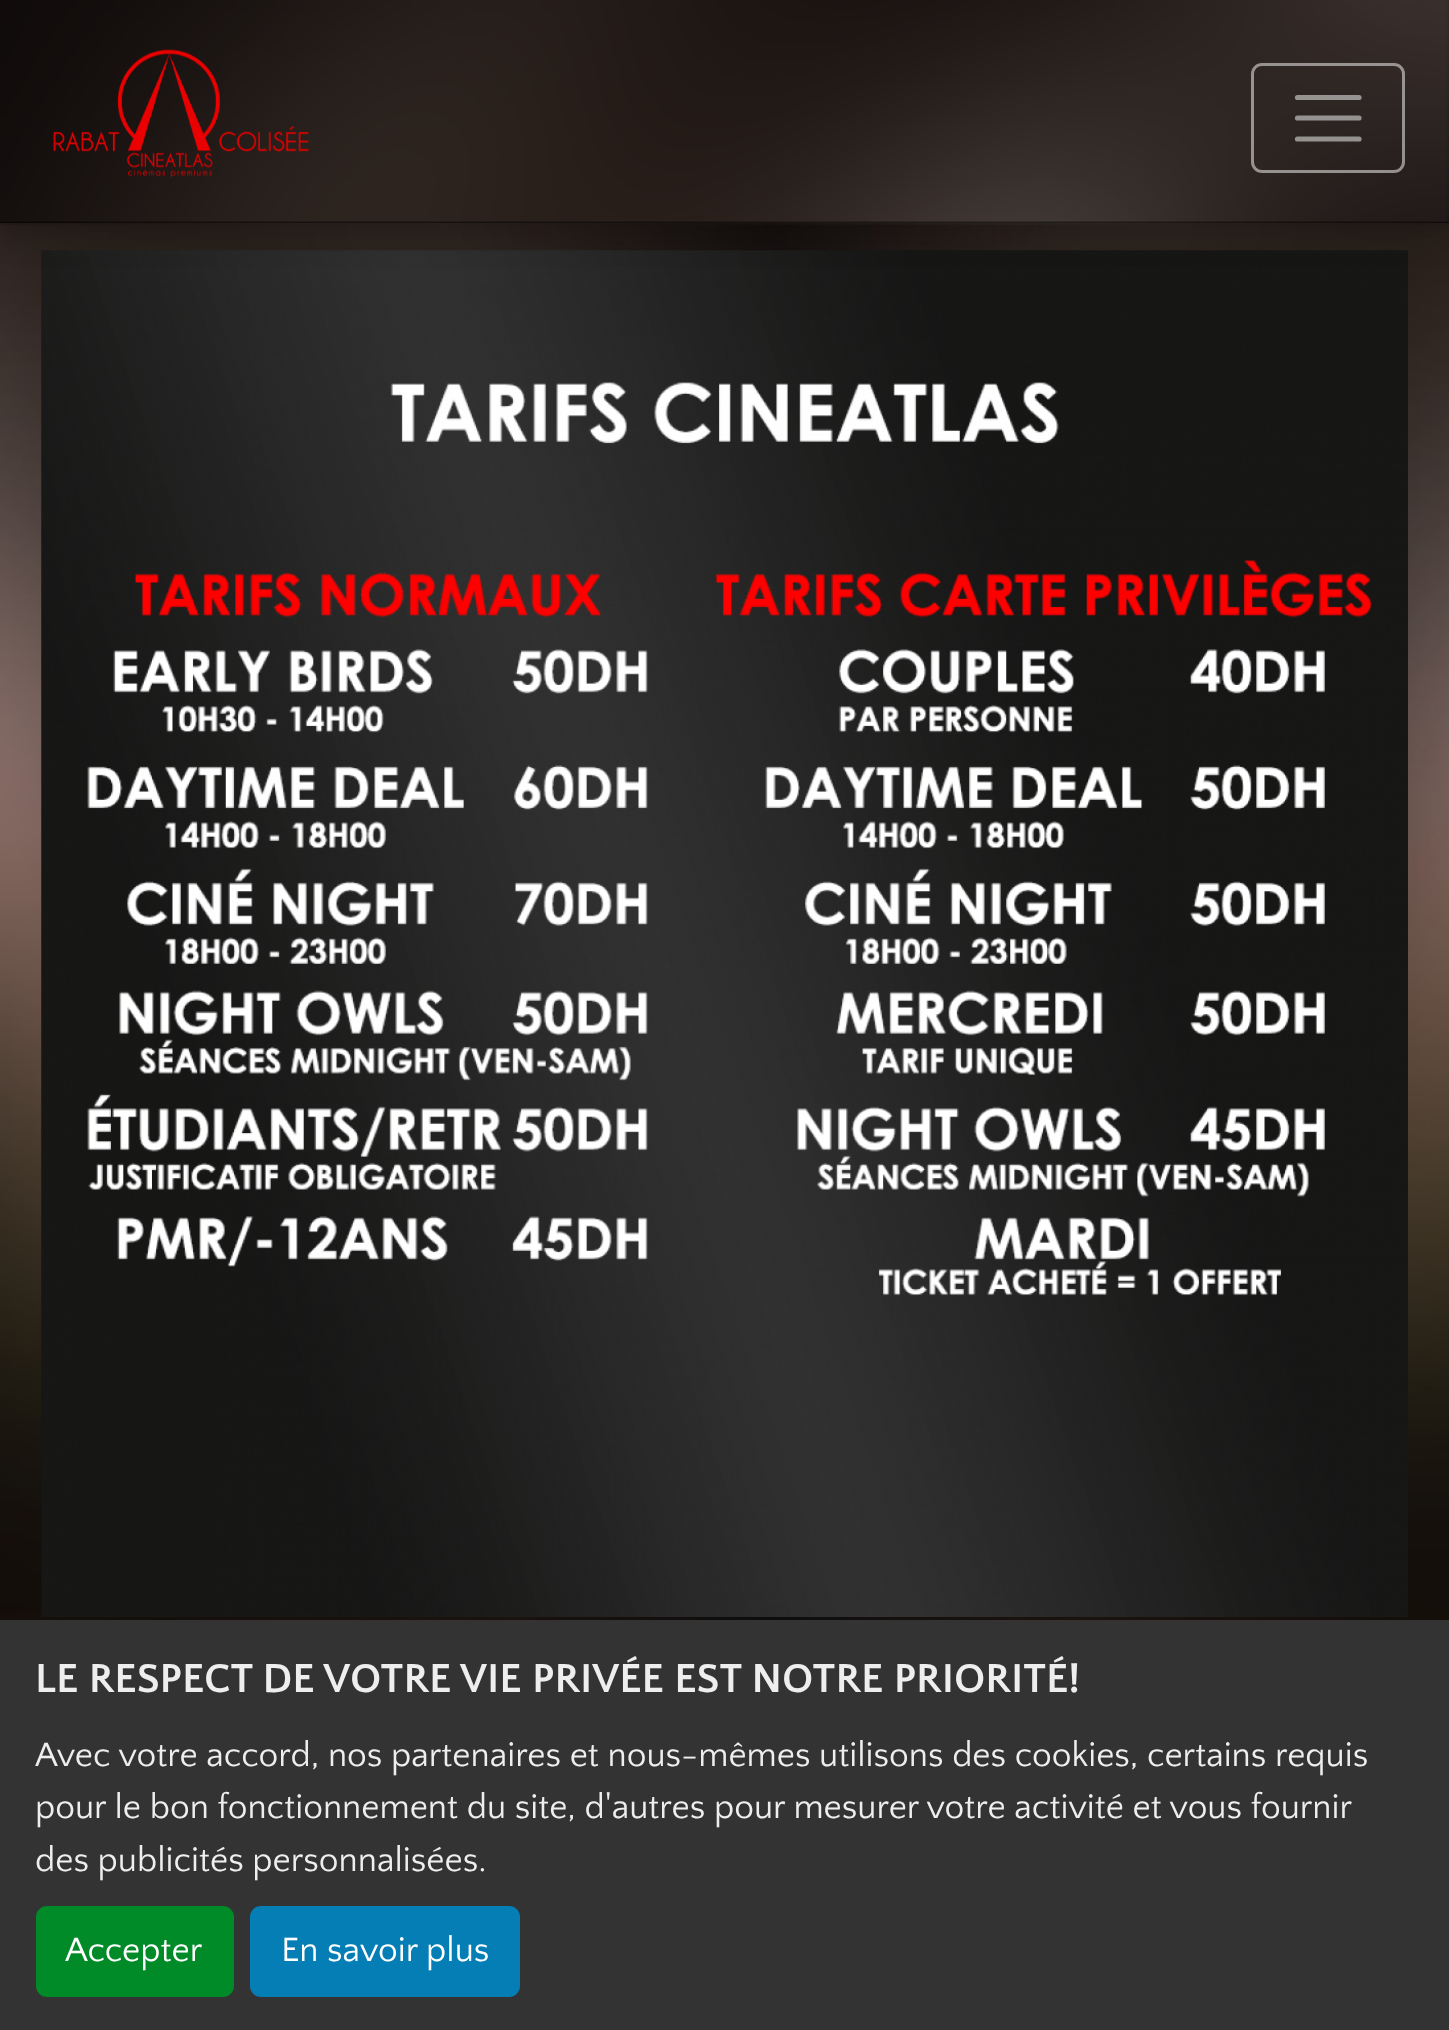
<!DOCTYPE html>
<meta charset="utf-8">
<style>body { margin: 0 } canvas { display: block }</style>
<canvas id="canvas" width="1449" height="2030"></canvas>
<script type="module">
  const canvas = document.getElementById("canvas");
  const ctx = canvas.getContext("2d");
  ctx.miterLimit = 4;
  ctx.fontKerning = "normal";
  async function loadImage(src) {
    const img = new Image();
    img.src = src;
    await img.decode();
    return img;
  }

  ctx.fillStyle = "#ffffff";
  ctx.fillRect(0, 0, 1449, 2030);
  ctx.drawImage(await loadImage("img1.png"), 0, 223, 1449, 1397);
  ctx.drawImage(await loadImage("img4.png"), 41, 250, 1367, 1367);
  ctx.fillStyle = "rgba(0, 0, 0, 0.25)";
  ctx.filter = "blur(18px)";
  ctx.beginPath();
  ctx.rect(0, 6, 1449, 222);
  ctx.fill();
  ctx.filter = "none";
  ctx.fillStyle = "#000000";
  ctx.fillRect(0, 0, 1449, 223);
  ctx.drawImage(await loadImage("img2.png"), 0, 0, 1449, 225);
  ctx.drawImage(await loadImage("img3.png"), 53, 49, 256, 129);
  ctx.beginPath();
  ctx.roundRect(1252.5, 64.5, 151, 107, 9.5);
  ctx.strokeStyle = "rgba(255, 255, 255, 0.5)";
  ctx.lineWidth = 3;
  ctx.stroke();
  ctx.beginPath();
  ctx.moveTo(1297.5, 97.5);
  ctx.lineTo(1359, 97.5);
  ctx.moveTo(1297.5, 118);
  ctx.lineTo(1359, 118);
  ctx.moveTo(1297.5, 139);
  ctx.lineTo(1359, 139);
  ctx.lineWidth = 5.2;
  ctx.lineCap = "round";
  ctx.stroke();
  ctx.fillStyle = "#333333";
  ctx.fillRect(0, 1620, 1449, 410);
  ctx.font = "bold 42.25px Quattrocento Sans";
  ctx.fillStyle = "#eeeeee";
  ctx.fillText("LE RESPECT DE VOTRE VIE PRIVÉE EST NOTRE PRIORITÉ!", 35, 1692);
  ctx.font = "35.2px Quattrocento Sans";
  ctx.fillText("Avec votre accord, nos partenaires et nous-mêmes utilisons des cookies, certains requis", 35, 1766);
  ctx.fillText("pour le bon fonctionnement du site, d'autres pour mesurer votre activité et vous fournir", 35, 1818);
  ctx.fillText("des publicités personnalisées.", 35, 1871);
  ctx.fillStyle = "#008a28";
  ctx.beginPath();
  ctx.roundRect(36, 1906, 198, 91, 11);
  ctx.fill();
  ctx.fillStyle = "#ffffff";
  ctx.fillText("Accepter", 65, 1961);
  ctx.fillStyle = "#057eb6";
  ctx.beginPath();
  ctx.roundRect(250, 1906, 270, 91, 11);
  ctx.fill();
  ctx.fillStyle = "#ffffff";
  ctx.fillText("En savoir plus", 281, 1961);
</script>
